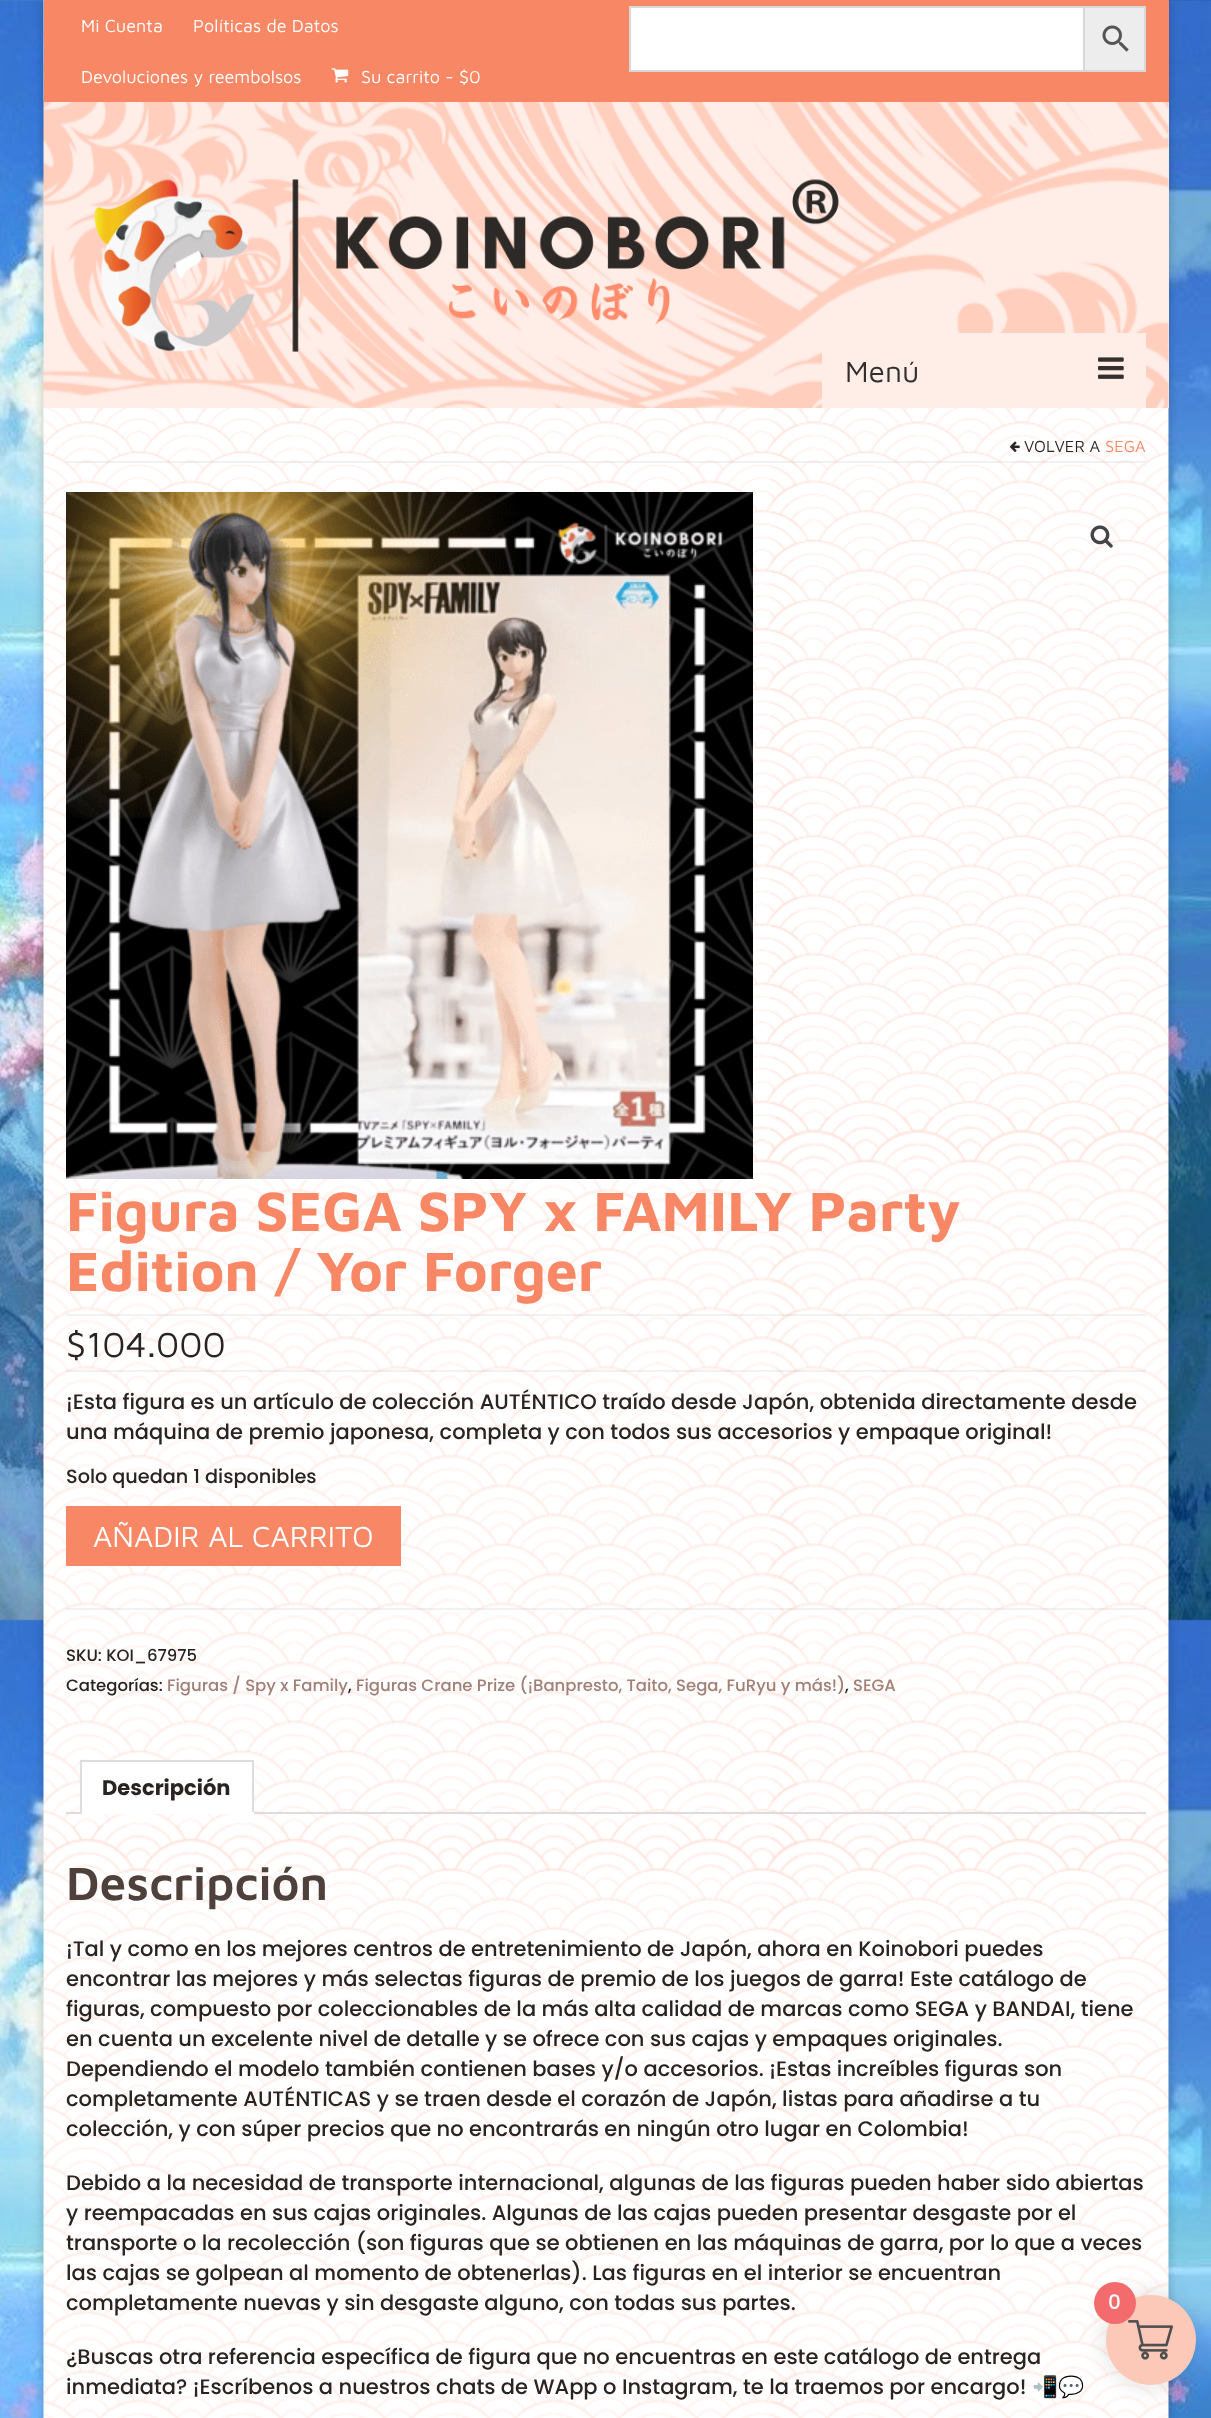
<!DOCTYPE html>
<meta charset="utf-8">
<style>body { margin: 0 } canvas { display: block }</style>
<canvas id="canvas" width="1211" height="2418"></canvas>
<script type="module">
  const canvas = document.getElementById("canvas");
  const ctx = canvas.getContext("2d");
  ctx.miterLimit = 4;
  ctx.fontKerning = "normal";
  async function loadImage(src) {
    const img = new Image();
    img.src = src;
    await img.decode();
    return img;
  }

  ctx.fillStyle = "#ffffff";
  ctx.fillRect(0, 0, 1211, 2418);
  ctx.drawImage(await loadImage("img1.png"), 0, 0, 1211, 2418);
  ctx.fillStyle = "rgba(0, 0, 0, 0.16)";
  ctx.filter = "blur(4px)";
  ctx.beginPath();
  ctx.rect(42, -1, 1128, 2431);
  ctx.fill();
  ctx.filter = "none";
  ctx.fillStyle = "#ffede7";
  ctx.fillRect(1168, 102, 1, 306);
  ctx.drawImage(await loadImage("img2.png"), 43, 0, 1126, 408);
  ctx.fillStyle = "#f88865";
  ctx.fillRect(44, 0, 1125, 102);
  ctx.font = "18px Maven Pro";
  ctx.fillStyle = "#ffffff";
  ctx.fillText("Mi Cuenta", 81, 32);
  ctx.fillText("Políticas de Datos", 193, 32);
  ctx.fillText("Devoluciones y reembolsos", 81, 83);
  ctx.drawImage(await loadImage("img3.png"), 331, 68, 18, 15);
  ctx.fillText("Su carrito - $0", 361, 83);
  ctx.fillStyle = "#ededed";
  ctx.beginPath();
  ctx.rect(1084, 7, 61, 64);
  ctx.fill();
  ctx.strokeStyle = "#d8d8d8";
  ctx.lineWidth = 2;
  ctx.stroke();
  ctx.fillStyle = "#ffffff";
  ctx.beginPath();
  ctx.rect(630, 7, 454, 64);
  ctx.fill();
  ctx.stroke();
  ctx.drawImage(await loadImage("img4.png"), 1102, 25, 27, 27);
  ctx.drawImage(await loadImage("img5.png"), 94, 179, 745, 173);
  ctx.fillStyle = "#ffede7";
  ctx.fillRect(822, 333, 324, 75);
  ctx.font = "30px Maven Pro";
  ctx.fillStyle = "#332f2e";
  ctx.fillText("Menú", 845, 382);
  ctx.drawImage(await loadImage("img6.png"), 1098, 357, 26, 22);
  ctx.drawImage(await loadImage("img7.png"), 43, 408, 1126, 2010);
  ctx.fillStyle = "rgba(0, 0, 0, 0.05)";
  ctx.fillRect(66, 461, 1080, 2);
  ctx.drawImage(await loadImage("img8.png"), 1010, 441, 10, 11);
  ctx.font = "16.5px Maven Pro";
  ctx.fillStyle = "#292321";
  ctx.fillText("VOLVER A", 1024, 452);
  ctx.fillStyle = "#f88865";
  ctx.fillText("SEGA", 1105, 452);
  ctx.drawImage(await loadImage("img9.png"), 66, 492, 687, 687);
  ctx.drawImage(await loadImage("img10.png"), 1090, 525, 23, 23);
  ctx.font = "bold 57px Maven Pro";
  ctx.fillText("Figura SEGA SPY x FAMILY Party", 66, 1231);
  ctx.fillText("Edition / Yor Forger", 66, 1291);
  ctx.fillStyle = "rgba(0, 0, 0, 0.05)";
  ctx.fillRect(66, 1314, 1080, 2);
  ctx.fillRect(66, 1370, 1080, 2);
  ctx.font = "36px Maven Pro";
  ctx.fillStyle = "#292321";
  ctx.fillText("$104.000", 66, 1357);
  ctx.font = "500 21px Poppins";
  ctx.fillText("¡Esta figura es un artículo de colección AUTÉNTICO traído desde Japón, obtenida directamente desde", 66, 1409);
  ctx.fillText("una máquina de premio japonesa, completa y con todos sus accesorios y empaque original!", 66, 1439);
  ctx.font = "500 19.25px Poppins";
  ctx.fillText("Solo quedan 1 disponibles", 66, 1483);
  ctx.fillStyle = "#f88865";
  ctx.fillRect(66, 1506, 335, 60);
  ctx.font = "30px Maven Pro";
  ctx.fillStyle = "#ffffff";
  ctx.fillText("AÑADIR AL CARRITO", 93, 1547);
  ctx.fillStyle = "rgba(0, 0, 0, 0.05)";
  ctx.fillRect(66, 1608, 1080, 2);
  ctx.font = "500 16.5px Poppins";
  ctx.fillStyle = "#292321";
  ctx.fillText("SKU: KOI_67975", 66, 1661);
  ctx.fillText("Categorías:", 66, 1691);
  ctx.fillStyle = "#a18177";
  ctx.fillText("Figuras / Spy x Family", 167, 1691);
  ctx.fillStyle = "#292321";
  ctx.fillText(",", 348, 1691);
  ctx.fillStyle = "#a18177";
  ctx.fillText("Figuras Crane Prize (¡Banpresto, Taito, Sega, FuRyu y más!)", 356, 1691);
  ctx.fillStyle = "#292321";
  ctx.fillText(",", 845, 1691);
  ctx.fillStyle = "#a18177";
  ctx.fillText("SEGA", 853, 1691);
  ctx.fillStyle = "#ffffff";
  ctx.fillRect(82, 1762, 170, 50);
  ctx.fillStyle = "#dddddd";
  ctx.fillRect(80, 1760, 174, 2);
  ctx.fillStyle = "#dfdbdf";
  ctx.fillRect(66, 1812, 1080, 2);
  ctx.fillStyle = "#dddddd";
  ctx.fillRect(252, 1760, 2, 54);
  ctx.fillStyle = "#ffffff";
  ctx.fillRect(80, 1812, 174, 2);
  ctx.fillStyle = "#dddddd";
  ctx.fillRect(80, 1760, 2, 54);
  ctx.font = "bold 21px Poppins";
  ctx.fillStyle = "#292321";
  ctx.fillText("Descripción", 102, 1795);
  ctx.font = "600 48px Maven Pro";
  ctx.fillStyle = "#4e403b";
  ctx.fillText("Descripción", 66, 1900);
  ctx.font = "500 21px Poppins";
  ctx.fillStyle = "#292321";
  ctx.fillText("¡Tal y como en los mejores centros de entretenimiento de Japón, ahora en Koinobori puedes", 66, 1956);
  ctx.fillText("encontrar las mejores y más selectas figuras de premio de los juegos de garra! Este catálogo de", 66, 1986);
  ctx.fillText("figuras, compuesto por coleccionables de la más alta calidad de marcas como SEGA y BANDAI, tiene", 66, 2016);
  ctx.fillText("en cuenta un excelente nivel de detalle y se ofrece con sus cajas y empaques originales.", 66, 2046);
  ctx.fillText("Dependiendo el modelo también contienen bases y/o accesorios. ¡Estas increíbles figuras son", 66, 2076);
  ctx.fillText("completamente AUTÉNTICAS y se traen desde el corazón de Japón, listas para añadirse a tu", 66, 2106);
  ctx.fillText("colección, y con súper precios que no encontrarás en ningún otro lugar en Colombia!", 66, 2136);
  ctx.fillText("Debido a la necesidad de transporte internacional, algunas de las figuras pueden haber sido abiertas", 66, 2190);
  ctx.fillText("y reempacadas en sus cajas originales. Algunas de las cajas pueden presentar desgaste por el", 66, 2220);
  ctx.fillText("transporte o la recolección (son figuras que se obtienen en las máquinas de garra, por lo que a veces", 66, 2250);
  ctx.fillText("las cajas se golpean al momento de obtenerlas). Las figuras en el interior se encuentran", 66, 2280);
  ctx.fillText("completamente nuevas y sin desgaste alguno, con todas sus partes.", 66, 2310);
  ctx.fillText("¿Buscas otra referencia específica de figura que no encuentras en este catálogo de entrega", 66, 2364);
  ctx.fillText("inmediata? ¡Escríbenos a nuestros chats de WApp o Instagram, te la traemos por encargo!", 66, 2394);
  ctx.font = "21px Noto Color Emoji";
  ctx.fillText("📲💬", 1032, 2394);
  ctx.fillStyle = "rgba(0, 0, 0, 0.1)";
  ctx.filter = "blur(11px)";
  ctx.beginPath();
  ctx.roundRect(1103, 2292, 96, 96, 48);
  ctx.fill();
  ctx.filter = "none";
  ctx.fillStyle = "#fcc9b9";
  ctx.beginPath();
  ctx.arc(1151, 2340, 45, 0, Math.PI * 2);
  ctx.fill();
  ctx.drawImage(await loadImage("img11.png"), 1128, 2320, 45, 40);
  ctx.fillStyle = "#f46b6d";
  ctx.beginPath();
  ctx.arc(1115, 2303, 21, 0, Math.PI * 2);
  ctx.fill();
  ctx.font = "500 20px Poppins";
  ctx.fillStyle = "#ffffff";
  ctx.fillText("0", 1108, 2309);
</script>
